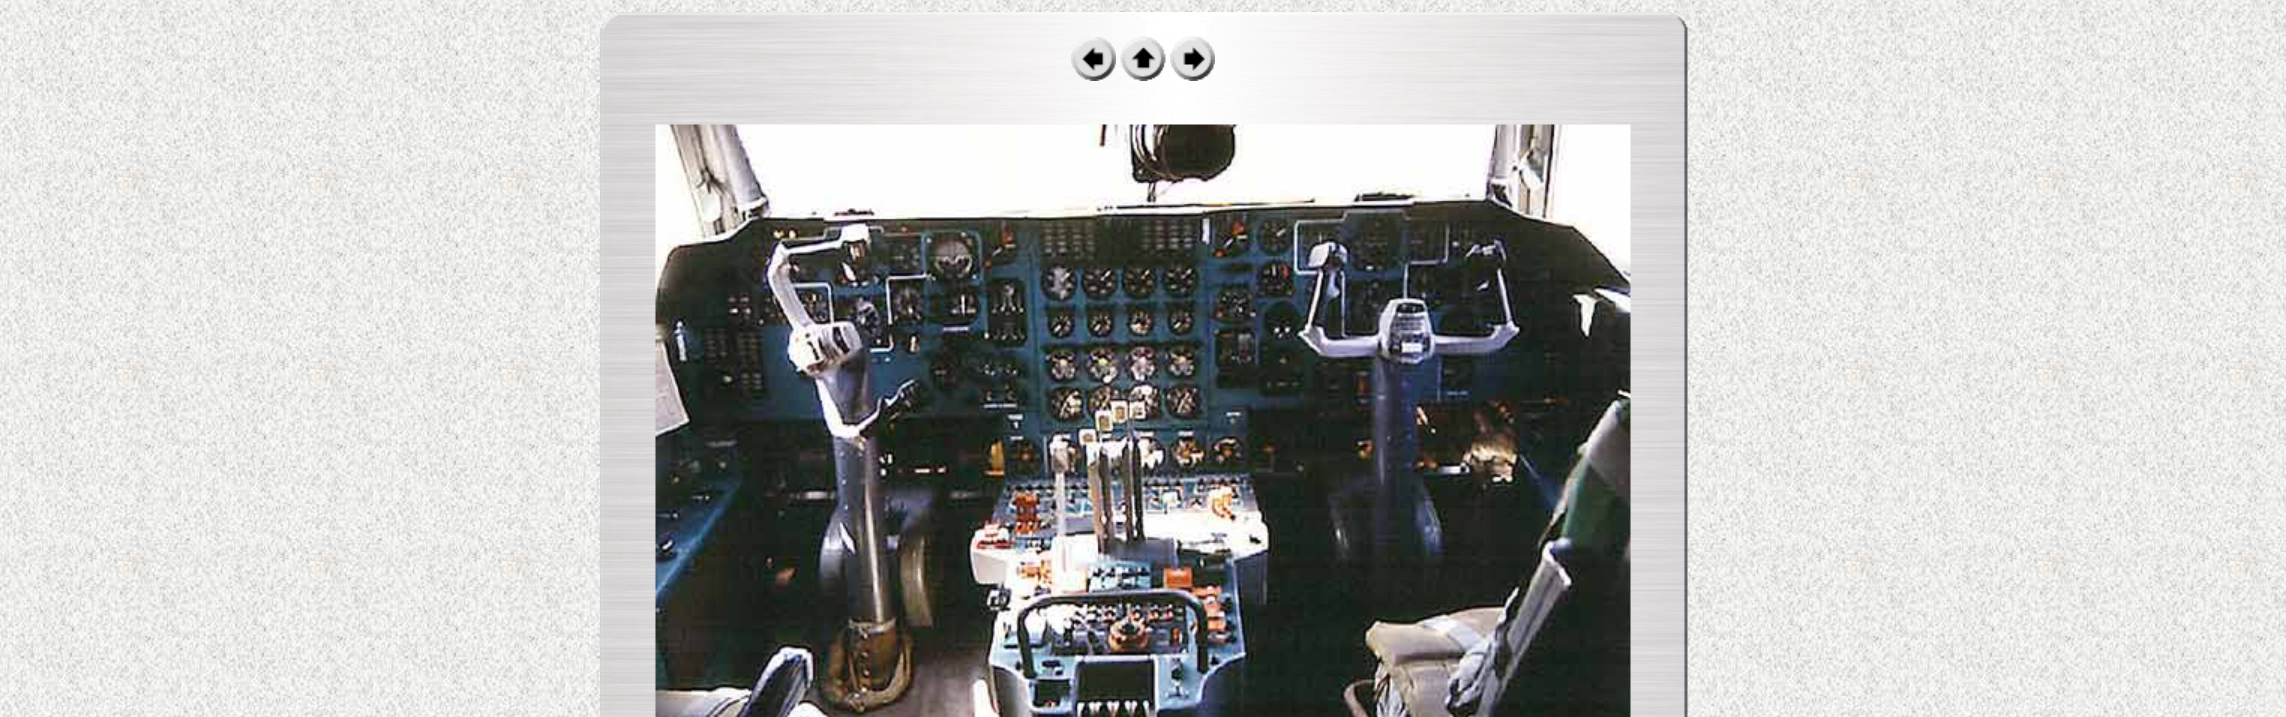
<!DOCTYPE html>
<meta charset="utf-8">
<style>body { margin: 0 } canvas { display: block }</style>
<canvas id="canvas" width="2286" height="717"></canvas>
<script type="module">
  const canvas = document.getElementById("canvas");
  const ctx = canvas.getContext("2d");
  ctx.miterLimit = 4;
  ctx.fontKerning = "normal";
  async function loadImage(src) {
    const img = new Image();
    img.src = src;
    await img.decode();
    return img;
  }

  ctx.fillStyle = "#ffffff";
  ctx.fillRect(0, 0, 2286, 717);
  ctx.drawImage(await loadImage("img1.png"), 0, 0, 2286, 717);
  ctx.drawImage(await loadImage("img2.png"), 600, 12, 1088, 24);
  ctx.drawImage(await loadImage("img3.png"), 600, 36, 1088, 681);
  ctx.drawImage(await loadImage("img4.png"), 1071, 37, 45, 44);
  ctx.drawImage(await loadImage("img5.png"), 1120, 36, 46, 45);
  ctx.drawImage(await loadImage("img6.png"), 1170, 36, 45, 45);
  ctx.drawImage(await loadImage("img7.png"), 655, 124, 976, 593);
</script>
